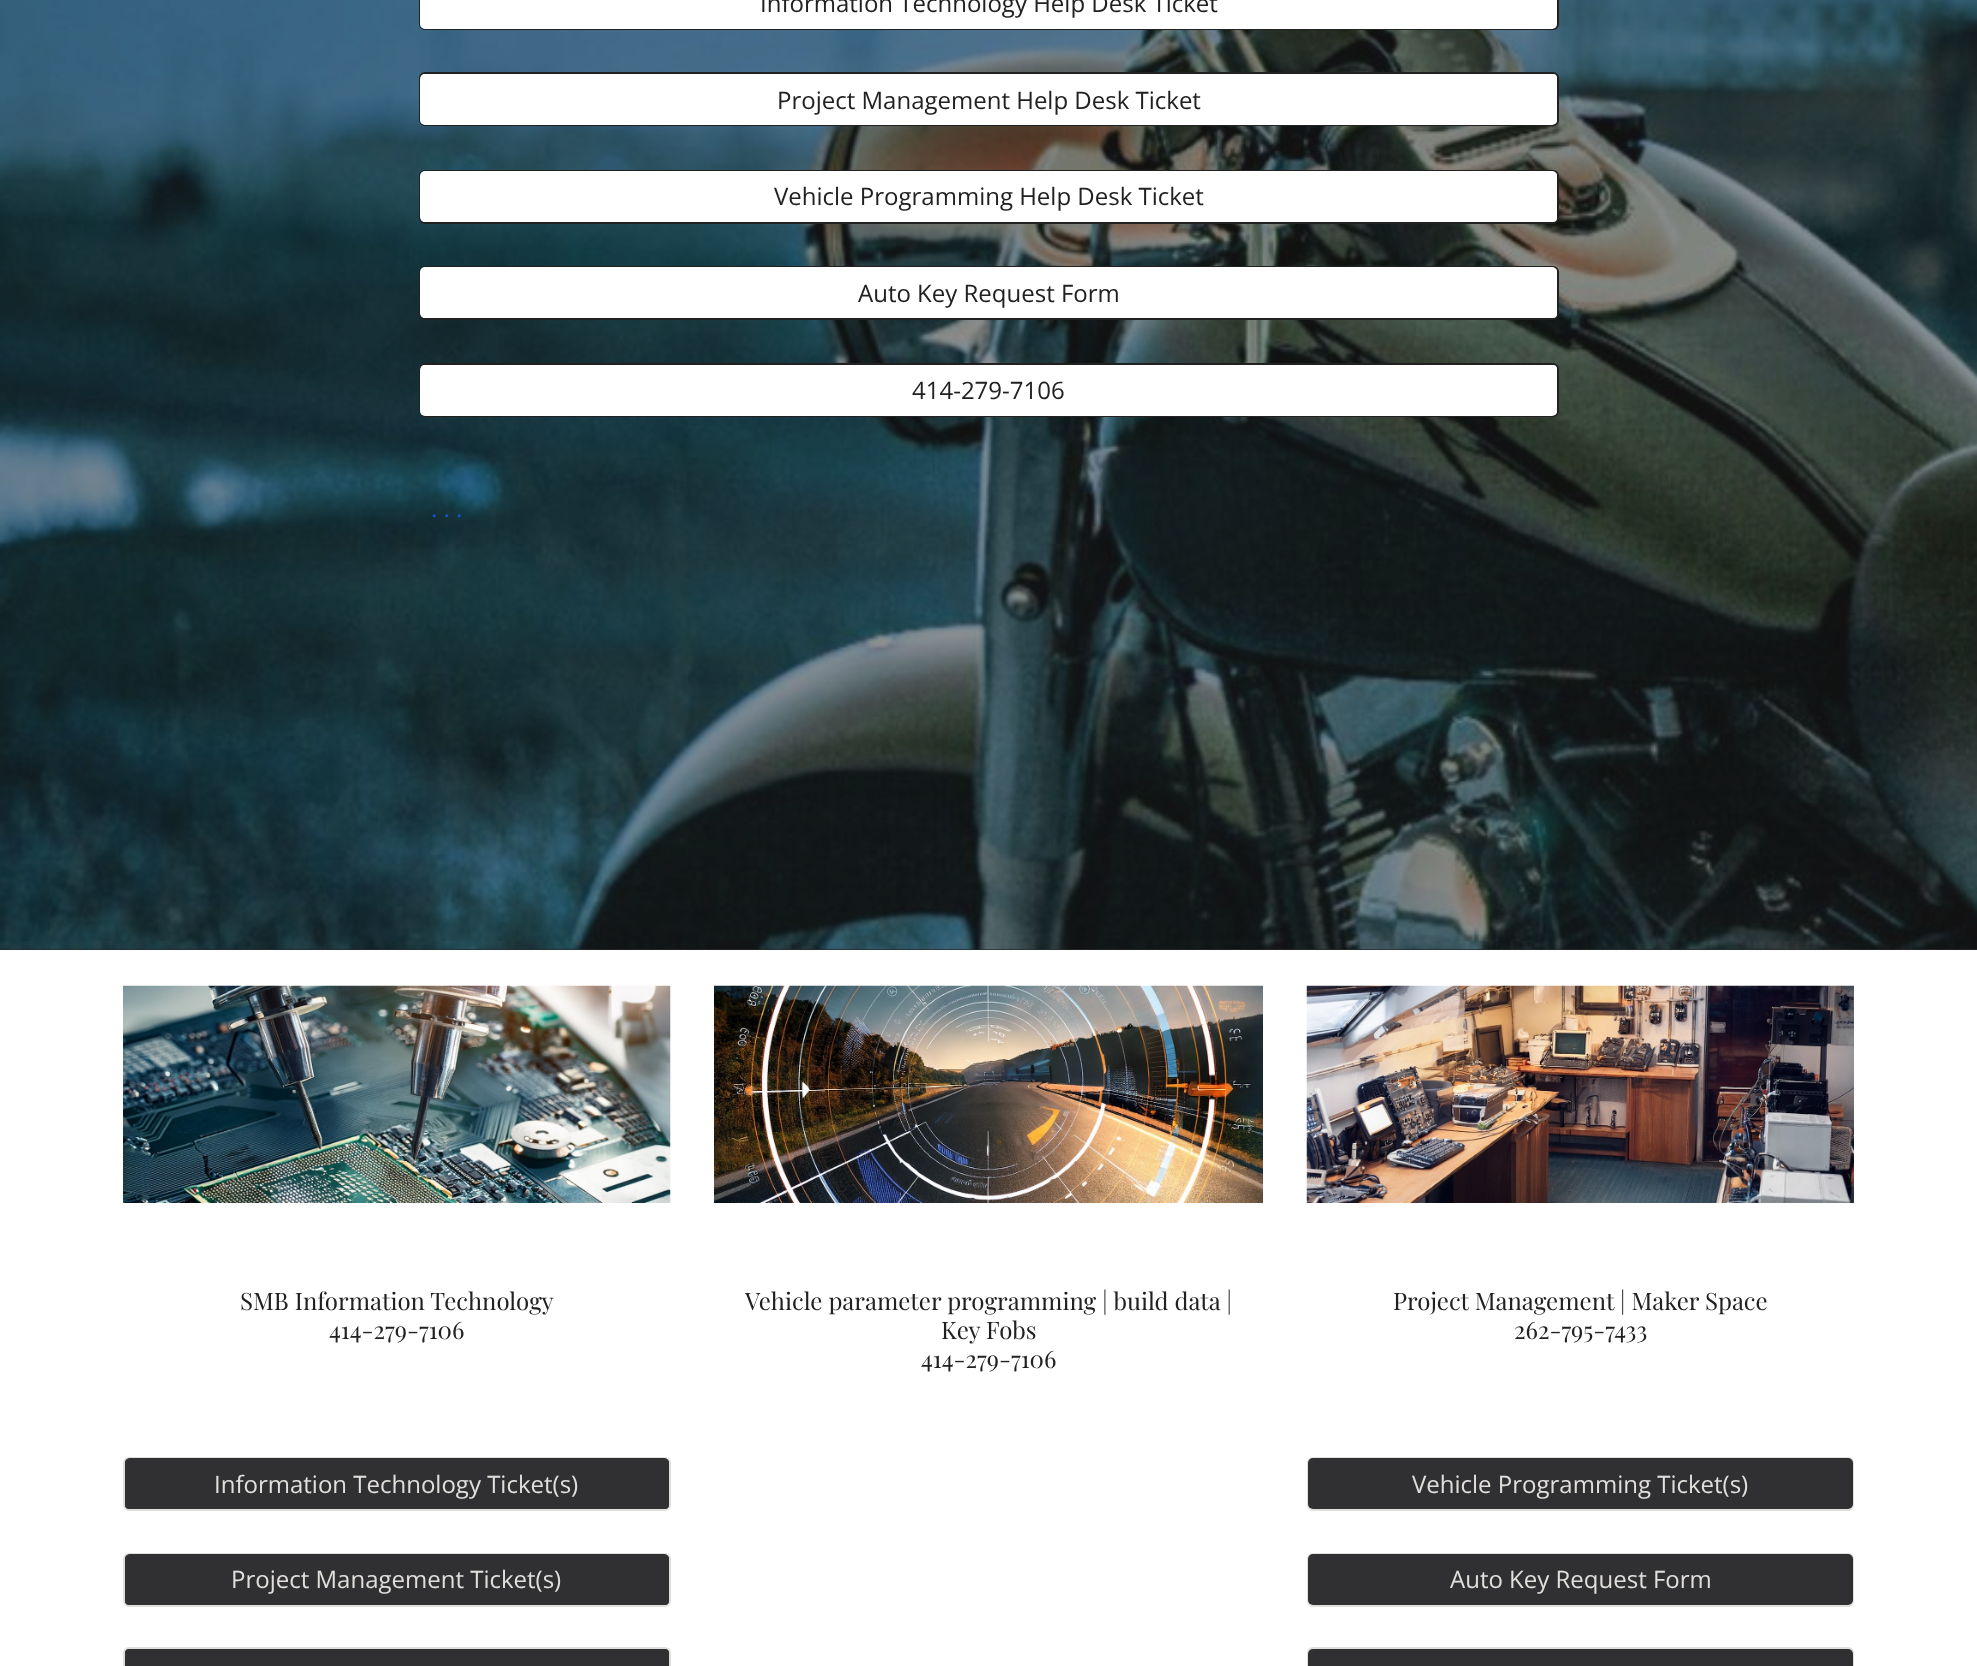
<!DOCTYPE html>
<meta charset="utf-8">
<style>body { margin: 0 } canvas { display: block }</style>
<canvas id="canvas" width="1977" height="1666"></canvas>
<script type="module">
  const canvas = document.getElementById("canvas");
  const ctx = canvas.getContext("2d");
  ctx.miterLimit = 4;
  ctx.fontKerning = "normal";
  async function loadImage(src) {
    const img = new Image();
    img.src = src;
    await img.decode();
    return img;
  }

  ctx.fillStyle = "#ffffff";
  ctx.fillRect(0, 0, 1977, 1666);
  ctx.fillStyle = "#29292a";
  ctx.fillRect(0, 949, 1977, 1);
  ctx.drawImage(await loadImage("img1.png"), 0, 0, 1977, 950);
  ctx.beginPath();
  ctx.roundRect(420, -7, 1138, 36, 5);
  ctx.strokeStyle = "#212121";
  ctx.lineWidth = 2;
  ctx.stroke();
  ctx.fillStyle = "#ffffff";
  ctx.beginPath();
  ctx.roundRect(420, -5, 1137, 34, 5);
  ctx.fill();
  ctx.font = "24px Open Sans";
  ctx.fillStyle = "#212121";
  ctx.fillText("Information Technology Help Desk Ticket", 760, 12);
  ctx.fillStyle = "#ffffff";
  ctx.beginPath();
  ctx.roundRect(420, 73, 1138, 52, 5);
  ctx.fill();
  ctx.stroke();
  ctx.beginPath();
  ctx.roundRect(420, 74, 1137, 51, 5);
  ctx.fill();
  ctx.fillStyle = "#212121";
  ctx.fillText("Project Management Help Desk Ticket", 777, 109);
  ctx.fillStyle = "#ffffff";
  ctx.beginPath();
  ctx.roundRect(420, 171, 1138, 52, 5);
  ctx.fill();
  ctx.stroke();
  ctx.beginPath();
  ctx.roundRect(420, 171, 1137, 51, 5);
  ctx.fill();
  ctx.fillStyle = "#212121";
  ctx.fillText("Vehicle Programming Help Desk Ticket", 774, 205);
  ctx.fillStyle = "#ffffff";
  ctx.beginPath();
  ctx.roundRect(420, 267, 1138, 52, 5);
  ctx.fill();
  ctx.stroke();
  ctx.beginPath();
  ctx.roundRect(420, 267, 1137, 51, 5);
  ctx.fill();
  ctx.fillStyle = "#212121";
  ctx.fillText("Auto Key Request Form", 858, 302);
  ctx.fillStyle = "#ffffff";
  ctx.beginPath();
  ctx.roundRect(420, 364, 1138, 52, 5);
  ctx.fill();
  ctx.stroke();
  ctx.beginPath();
  ctx.roundRect(420, 365, 1137, 51, 5);
  ctx.fill();
  ctx.fillStyle = "#212121";
  ctx.fillText("414-279-7106", 912, 399);
  ctx.fillStyle = "#1155cc";
  ctx.fillText(". . .", 431, 517);
  ctx.drawImage(await loadImage("img2.png"), 123, 985, 548, 218);
  ctx.drawImage(await loadImage("img3.png"), 714, 985, 549, 218);
  ctx.drawImage(await loadImage("img4.png"), 1306, 985, 548, 218);
  ctx.font = "24px Playfair Display";
  ctx.fillStyle = "#212121";
  ctx.fillText("SMB Information Technology", 240, 1310);
  ctx.fillText("414-279-7106", 329, 1339);
  ctx.fillText("Vehicle parameter programming | build data |", 745, 1310);
  ctx.fillText("Key Fobs", 941, 1339);
  ctx.fillText("414-279-7106", 921, 1368);
  ctx.fillText("Project Management | Maker Space", 1393, 1310);
  ctx.fillText("262-795-7433", 1514, 1339);
  ctx.fillStyle = "#303033";
  ctx.beginPath();
  ctx.roundRect(124, 1458, 546, 52, 5);
  ctx.fill();
  ctx.strokeStyle = "#e1dfdb";
  ctx.stroke();
  ctx.beginPath();
  ctx.roundRect(125, 1458, 544, 51, 5);
  ctx.fill();
  ctx.font = "24px Open Sans";
  ctx.fillStyle = "#e1dfdb";
  ctx.fillText("Information Technology Ticket(s)", 214, 1493);
  ctx.fillStyle = "#303033";
  ctx.beginPath();
  ctx.roundRect(124, 1554, 546, 52, 5);
  ctx.fill();
  ctx.stroke();
  ctx.beginPath();
  ctx.roundRect(125, 1554, 544, 51, 5);
  ctx.fill();
  ctx.fillStyle = "#e1dfdb";
  ctx.fillText("Project Management Ticket(s)", 231, 1588);
  ctx.fillStyle = "#303033";
  ctx.beginPath();
  ctx.roundRect(124, 1648, 546, 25, 5);
  ctx.fill();
  ctx.stroke();
  ctx.beginPath();
  ctx.roundRect(125, 1649, 544, 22, 5);
  ctx.fill();
  ctx.beginPath();
  ctx.roundRect(1308, 1458, 545, 52, 5);
  ctx.stroke();
  ctx.beginPath();
  ctx.roundRect(1308, 1458, 545, 51, 5);
  ctx.fill();
  ctx.fillStyle = "#e1dfdb";
  ctx.fillText("Vehicle Programming Ticket(s)", 1412, 1493);
  ctx.beginPath();
  ctx.roundRect(1308, 1554, 545, 52, 5);
  ctx.stroke();
  ctx.fillStyle = "#303033";
  ctx.beginPath();
  ctx.roundRect(1308, 1554, 545, 51, 5);
  ctx.fill();
  ctx.fillStyle = "#e1dfdb";
  ctx.fillText("Auto Key Request Form", 1450, 1588);
  ctx.beginPath();
  ctx.roundRect(1308, 1648, 545, 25, 5);
  ctx.stroke();
  ctx.fillStyle = "#303033";
  ctx.beginPath();
  ctx.roundRect(1308, 1649, 545, 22, 5);
  ctx.fill();
</script>
